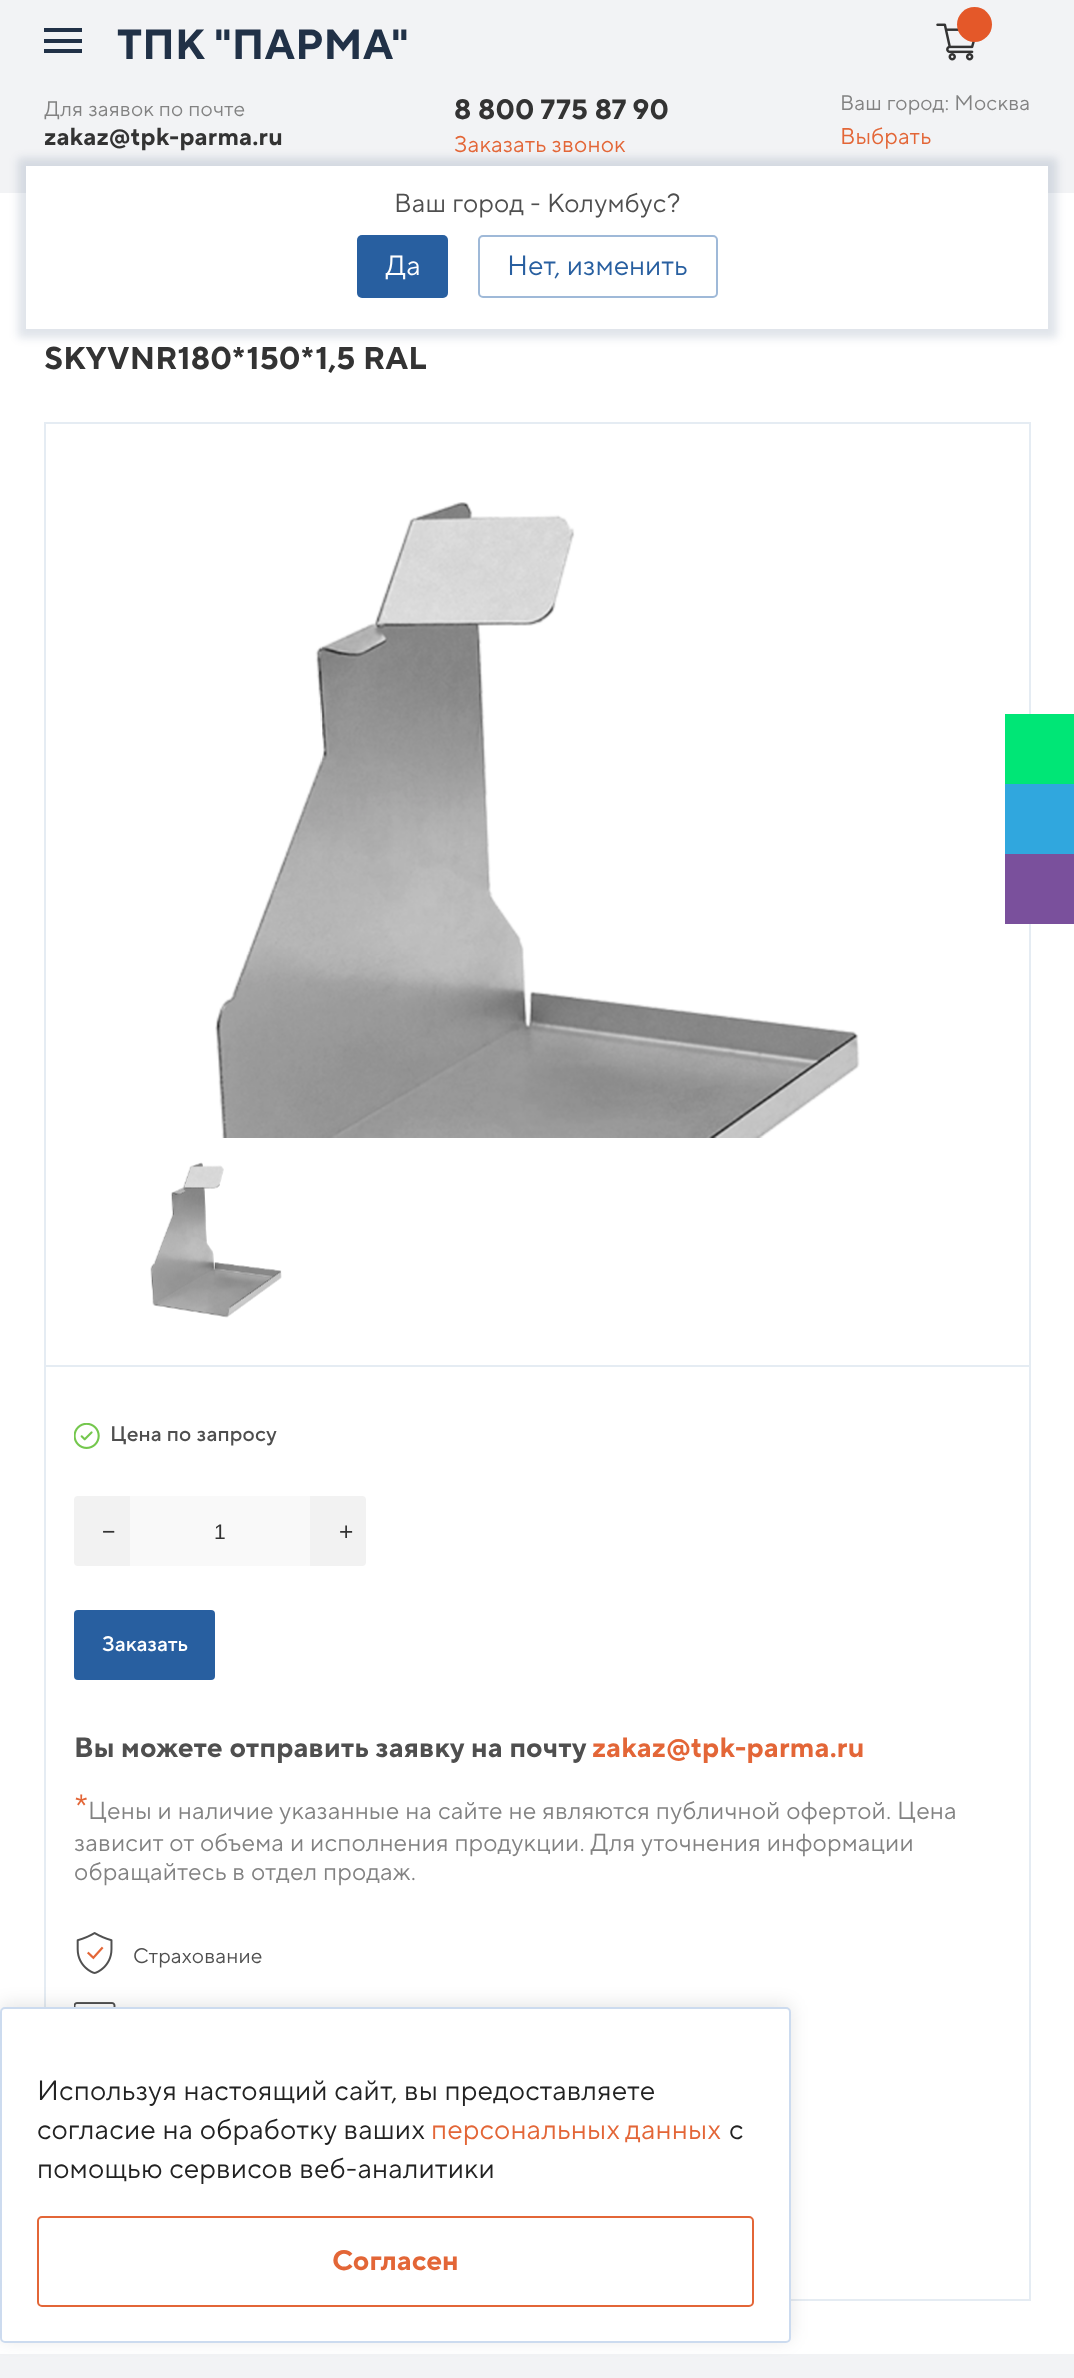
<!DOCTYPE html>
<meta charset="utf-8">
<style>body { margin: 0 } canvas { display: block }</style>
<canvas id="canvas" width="1074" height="2378"></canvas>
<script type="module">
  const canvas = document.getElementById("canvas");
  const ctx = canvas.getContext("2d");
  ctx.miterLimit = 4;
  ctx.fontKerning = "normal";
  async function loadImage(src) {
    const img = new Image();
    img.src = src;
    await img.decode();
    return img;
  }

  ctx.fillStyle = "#ffffff";
  ctx.fillRect(0, 0, 1074, 2378);
  ctx.fillStyle = "#f2f3f5";
  ctx.fillRect(0, 0, 1074, 193);
  ctx.fillStyle = "#213147";
  ctx.fillRect(44, 28, 38, 4);
  ctx.fillRect(44, 39, 38, 4);
  ctx.fillRect(44, 49, 38, 4);
  ctx.letterSpacing = "0.18px";
  ctx.font = "bold 42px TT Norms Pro";
  ctx.fillText("ТПК \"ПАРМА\"", 117, 59);
  ctx.drawImage(await loadImage("img1.png"), 936, 23, 39, 38);
  ctx.fillStyle = "#e45829";
  ctx.beginPath();
  ctx.arc(974.5, 24.5, 17.5, 0, Math.PI * 2);
  ctx.fill();
  ctx.font = "21px TT Norms Pro";
  ctx.fillStyle = "#828282";
  ctx.fillText("Ваш город: Москва", 840, 110);
  ctx.font = "22.75px TT Norms Pro";
  ctx.fillStyle = "#e36637";
  ctx.fillText("Выбрать", 840, 144);
  ctx.fillStyle = "rgba(0, 37, 82, 0.12)";
  ctx.filter = "blur(4.5px)";
  ctx.beginPath();
  ctx.rect(18, 158, 1039, 180);
  ctx.fill();
  ctx.filter = "none";
  ctx.fillStyle = "#ffffff";
  ctx.fillRect(26, 166, 1022, 163);
  ctx.font = "26.25px TT Norms Pro";
  ctx.fillStyle = "#4f4f4f";
  ctx.fillText("Ваш город - Колумбус?", 394, 212);
  ctx.fillStyle = "#285fa0";
  ctx.beginPath();
  ctx.roundRect(357, 235, 91, 63, 5);
  ctx.fill();
  ctx.letterSpacing = "0px";
  ctx.font = "28px TT Norms Pro";
  ctx.fillStyle = "#ffffff";
  ctx.fillText("Да", 385, 275);
  ctx.beginPath();
  ctx.roundRect(479, 236, 238, 61, 4);
  ctx.strokeStyle = "#9fb9d8";
  ctx.lineWidth = 2;
  ctx.stroke();
  ctx.fillStyle = "#285fa0";
  ctx.fillText("Нет, изменить", 507, 275);
  ctx.letterSpacing = "0.18px";
  ctx.font = "21px TT Norms Pro";
  ctx.fillStyle = "#828282";
  ctx.fillText("Для заявок по почте", 44, 116);
  ctx.font = "bold 24.5px TT Norms Pro";
  ctx.fillStyle = "#333333";
  ctx.fillText("zakaz@tpk-parma.ru", 44, 145);
  ctx.font = "bold 28px TT Norms Pro";
  ctx.fillText("8 800 775 87 90", 454, 119);
  ctx.font = "22.75px TT Norms Pro";
  ctx.fillStyle = "#e36637";
  ctx.fillText("Заказать звонок", 454, 152);
  ctx.font = "bold 31.5px TT Norms Pro";
  ctx.fillStyle = "#333333";
  ctx.fillText("SKYVNR180*150*1,5 RAL", 44, 369);
  ctx.strokeStyle = "#e5ecf3";
  ctx.strokeRect(45, 423, 985, 1877);
  ctx.fillStyle = "#e5ecf3";
  ctx.fillRect(46, 1365, 983, 2);
  ctx.drawImage(await loadImage("img2.png"), 215, 502, 645, 636);
  ctx.drawImage(await loadImage("img3.png"), 150, 1162, 132, 156);
  ctx.drawImage(await loadImage("img4.png"), 74, 1423, 26, 26);
  ctx.font = "500 21px TT Norms Pro";
  ctx.fillStyle = "#4f4f4f";
  ctx.fillText("Цена по запросу", 110, 1441);
  ctx.fillStyle = "#f2f2f2";
  ctx.beginPath();
  ctx.roundRect(74, 1496, 56, 70, [4, 0, 0, 4]);
  ctx.fill();
  ctx.letterSpacing = "0px";
  ctx.font = "28px TT Norms Pro";
  ctx.fillStyle = "#333333";
  ctx.fillText("–", 102, 1540);
  ctx.fillStyle = "#f9f9f9";
  ctx.fillRect(130, 1496, 180, 70);
  ctx.font = "21px Liberation Sans";
  ctx.fillStyle = "#333333";
  ctx.fillText("1", 214, 1539);
  ctx.fillStyle = "#f2f2f2";
  ctx.beginPath();
  ctx.roundRect(310, 1496, 56, 70, [0, 4, 4, 0]);
  ctx.fill();
  ctx.font = "28px TT Norms Pro";
  ctx.fillStyle = "#333333";
  ctx.fillText("+", 338, 1540);
  ctx.fillStyle = "#285fa0";
  ctx.beginPath();
  ctx.roundRect(74, 1610, 141, 70, 4);
  ctx.fill();
  ctx.font = "500 21px TT Norms Pro";
  ctx.fillStyle = "#ffffff";
  ctx.fillText("Заказать", 102, 1651);
  ctx.letterSpacing = "0.18px";
  ctx.font = "bold 28px TT Norms Pro";
  ctx.fillStyle = "#4f4f4f";
  ctx.fillText("Вы можете отправить заявку на почту", 74, 1757);
  ctx.fillStyle = "#e36637";
  ctx.fillText("zakaz@tpk-parma.ru", 592, 1757);
  ctx.font = "35px TT Norms Pro";
  ctx.fillText("*", 74, 1819);
  ctx.font = "24.5px TT Norms Pro";
  ctx.fillStyle = "#828282";
  ctx.fillText("Цены и наличие указанные на сайте не являются публичной офертой. Цена", 88, 1819);
  ctx.fillText("зависит от объема и исполнения продукции. Для уточнения информации", 74, 1851);
  ctx.fillText("обращайтесь в отдел продаж.", 74, 1880);
  ctx.drawImage(await loadImage("img5.png"), 76, 1932, 37, 42);
  ctx.font = "21px TT Norms Pro";
  ctx.fillStyle = "#4f4f4f";
  ctx.fillText("Страхование", 133, 1963);
  ctx.drawImage(await loadImage("img6.png"), 74, 2002, 42, 5);
  ctx.fillStyle = "#f2f3f5";
  ctx.fillRect(0, 2354, 1074, 24);
  ctx.fillStyle = "#00e676";
  ctx.fillRect(1005, 714, 69, 70);
  ctx.fillStyle = "#30a7de";
  ctx.fillRect(1005, 784, 69, 70);
  ctx.fillStyle = "#7a509c";
  ctx.fillRect(1005, 854, 69, 70);
  ctx.fillStyle = "rgba(0, 0, 0, 0.1)";
  ctx.filter = "blur(9px)";
  ctx.beginPath();
  ctx.roundRect(0, 2004, 791, 336, 5);
  ctx.fill();
  ctx.filter = "none";
  ctx.fillStyle = "#ffffff";
  ctx.beginPath();
  ctx.roundRect(0, 2007, 791, 336, 5);
  ctx.fill();
  ctx.beginPath();
  ctx.roundRect(1, 2008, 789, 334, 4);
  ctx.strokeStyle = "rgba(0, 75, 177, 0.2)";
  ctx.stroke();
  ctx.font = "28px TT Norms Pro";
  ctx.fillStyle = "#222222";
  ctx.fillText("Используя настоящий сайт, вы предоставляете", 37, 2100);
  ctx.fillText("согласие на обработку ваших", 37, 2139);
  ctx.wordSpacing = "-1px";
  ctx.fillStyle = "#e36637";
  ctx.fillText("персональных данных", 431, 2139);
  ctx.wordSpacing = "0px";
  ctx.fillStyle = "#222222";
  ctx.fillText("с", 729, 2139);
  ctx.fillText("помощью сервисов веб-аналитики", 37, 2178);
  ctx.beginPath();
  ctx.roundRect(38, 2217, 715, 89, 4);
  ctx.strokeStyle = "#e36637";
  ctx.stroke();
  ctx.letterSpacing = "0px";
  ctx.font = "bold 28px TT Norms Pro";
  ctx.fillStyle = "#e36637";
  ctx.fillText("Согласен", 332, 2270);
</script>
